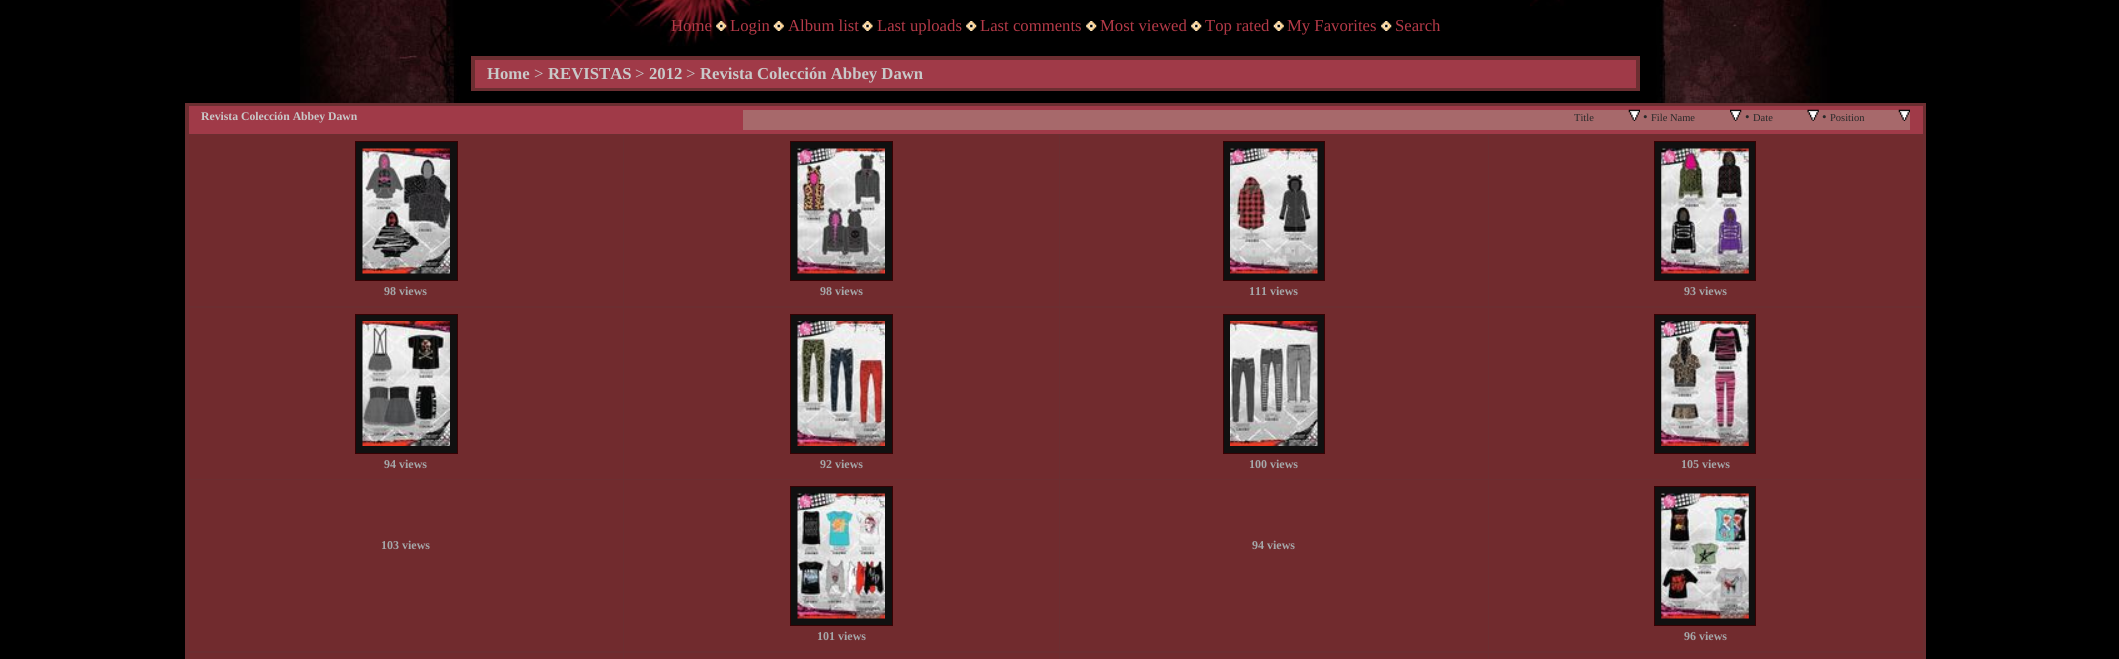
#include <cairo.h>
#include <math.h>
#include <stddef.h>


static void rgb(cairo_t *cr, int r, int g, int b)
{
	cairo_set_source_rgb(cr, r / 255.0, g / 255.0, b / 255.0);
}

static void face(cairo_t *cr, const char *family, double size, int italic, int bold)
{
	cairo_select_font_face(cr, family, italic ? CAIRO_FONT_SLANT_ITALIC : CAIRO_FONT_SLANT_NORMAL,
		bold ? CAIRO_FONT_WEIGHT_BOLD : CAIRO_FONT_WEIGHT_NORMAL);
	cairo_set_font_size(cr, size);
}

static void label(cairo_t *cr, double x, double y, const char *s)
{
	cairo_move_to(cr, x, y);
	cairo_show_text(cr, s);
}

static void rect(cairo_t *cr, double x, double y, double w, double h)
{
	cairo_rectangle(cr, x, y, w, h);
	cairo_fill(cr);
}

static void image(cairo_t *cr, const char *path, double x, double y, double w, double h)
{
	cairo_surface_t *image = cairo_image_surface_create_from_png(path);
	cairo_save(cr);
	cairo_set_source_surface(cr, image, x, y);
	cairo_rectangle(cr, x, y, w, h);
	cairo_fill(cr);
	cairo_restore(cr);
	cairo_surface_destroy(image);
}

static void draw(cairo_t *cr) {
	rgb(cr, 0, 0, 0);
	cairo_paint(cr);
	image(cr, "image0.png", 300, 0, 1530, 103);
	face(cr, "Liberation Serif", 16.7, 0, 0);
	rgb(cr, 181, 58, 72);
	label(cr, 671, 31, "Home");
	image(cr, "image1.png", 716, 21, 11, 10);
	label(cr, 730, 31, "Login");
	image(cr, "image2.png", 773, 21, 11, 10);
	label(cr, 788, 31, "Album list");
	image(cr, "image3.png", 862, 21, 11, 10);
	label(cr, 877, 31, "Last uploads");
	image(cr, "image4.png", 966, 21, 11, 10);
	label(cr, 980, 31, "Last comments");
	image(cr, "image4.png", 1086, 21, 11, 10);
	label(cr, 1100, 31, "Most viewed");
	image(cr, "image4.png", 1191, 21, 11, 10);
	label(cr, 1205, 31, "Top rated");
	image(cr, "image5.png", 1273, 21, 11, 10);
	label(cr, 1287, 31, "My Favorites");
	image(cr, "image4.png", 1381, 21, 11, 10);
	label(cr, 1395, 31, "Search");
	rgb(cr, 108, 46, 49);
	rect(cr, 471, 56, 1169, 35);
	rgb(cr, 160, 58, 72);
	rect(cr, 475, 60, 1161, 28);
	face(cr, "Liberation Serif", 16.7, 0, 1);
	rgb(cr, 201, 201, 201);
	label(cr, 487, 79, "Home");
	face(cr, "Liberation Serif", 16.7, 0, 0);
	label(cr, 534, 79, ">");
	face(cr, "Liberation Serif", 16.7, 0, 1);
	label(cr, 548, 79, "REVISTAS");
	face(cr, "Liberation Serif", 16.7, 0, 0);
	label(cr, 635, 79, ">");
	face(cr, "Liberation Serif", 16.7, 0, 1);
	label(cr, 649, 79, "2012");
	face(cr, "Liberation Serif", 16.7, 0, 0);
	label(cr, 686, 79, ">");
	face(cr, "Liberation Serif", 16.7, 0, 1);
	label(cr, 700, 79, "Revista Colección Abbey Dawn");
	rgb(cr, 108, 46, 49);
	rect(cr, 185, 103, 1741, 556);
	rgb(cr, 160, 58, 72);
	rect(cr, 189, 106, 1734, 28);
	face(cr, "Liberation Serif", 11.7, 0, 1);
	rgb(cr, 201, 201, 201);
	label(cr, 201, 120, "Revista Colección Abbey Dawn");
	rgb(cr, 167, 105, 107);
	rect(cr, 743, 110, 1167, 20);
	face(cr, "Liberation Serif", 10.5, 0, 0);
	rgb(cr, 40, 40, 40);
	label(cr, 1574, 121, "Title");
	image(cr, "image6.png", 1628, 109, 12, 12);
	face(cr, "Liberation Serif", 13, 0, 0);
	label(cr, 1643, 121, "•");
	face(cr, "Liberation Serif", 10.5, 0, 0);
	label(cr, 1651, 121, "File Name");
	image(cr, "image7.png", 1730, 109, 12, 12);
	face(cr, "Liberation Serif", 13, 0, 0);
	label(cr, 1745, 121, "•");
	face(cr, "Liberation Serif", 10.5, 0, 0);
	label(cr, 1753, 121, "Date");
	image(cr, "image8.png", 1807, 109, 12, 12);
	face(cr, "Liberation Serif", 13, 0, 0);
	label(cr, 1822, 121, "•");
	face(cr, "Liberation Serif", 10.5, 0, 0);
	label(cr, 1830, 121, "Position");
	image(cr, "image9.png", 1898, 109, 12, 12);
	rgb(cr, 113, 43, 46);
	rect(cr, 189, 135, 434, 171);
	rgb(cr, 16, 16, 16);
	cairo_rectangle(cr, 355.5, 141.5, 102, 139);
	cairo_fill_preserve(cr);
	rgb(cr, 53, 1, 3);
	cairo_set_line_width(cr, 1);
	cairo_stroke(cr);
	image(cr, "image10.png", 362, 148, 88, 126);
	face(cr, "Liberation Serif", 12, 0, 1);
	rgb(cr, 165, 168, 170);
	label(cr, 384, 295, "98 views");
	rgb(cr, 113, 43, 46);
	rect(cr, 624, 135, 435, 171);
	rgb(cr, 16, 16, 16);
	cairo_rectangle(cr, 790.5, 141.5, 102, 139);
	cairo_fill_preserve(cr);
	rgb(cr, 53, 1, 3);
	cairo_stroke(cr);
	image(cr, "image11.png", 797, 148, 88, 126);
	rgb(cr, 165, 168, 170);
	label(cr, 820, 295, "98 views");
	rgb(cr, 113, 43, 46);
	rect(cr, 1060, 135, 428, 171);
	rgb(cr, 16, 16, 16);
	cairo_rectangle(cr, 1223.5, 141.5, 101, 139);
	cairo_fill_preserve(cr);
	rgb(cr, 53, 1, 3);
	cairo_stroke(cr);
	image(cr, "image12.png", 1230, 148, 88, 126);
	rgb(cr, 165, 168, 170);
	label(cr, 1249, 295, "111 views");
	rgb(cr, 113, 43, 46);
	rect(cr, 1489, 135, 434, 171);
	rgb(cr, 16, 16, 16);
	cairo_rectangle(cr, 1654.5, 141.5, 101, 139);
	cairo_fill_preserve(cr);
	rgb(cr, 53, 1, 3);
	cairo_stroke(cr);
	image(cr, "image13.png", 1661, 148, 88, 126);
	rgb(cr, 165, 168, 170);
	label(cr, 1684, 295, "93 views");
	rgb(cr, 113, 43, 46);
	rect(cr, 189, 308, 434, 171);
	rgb(cr, 16, 16, 16);
	cairo_rectangle(cr, 355.5, 314.5, 102, 139);
	cairo_fill_preserve(cr);
	rgb(cr, 53, 1, 3);
	cairo_stroke(cr);
	image(cr, "image14.png", 362, 321, 88, 125);
	rgb(cr, 165, 168, 170);
	label(cr, 384, 468, "94 views");
	rgb(cr, 113, 43, 46);
	rect(cr, 624, 308, 435, 171);
	rgb(cr, 16, 16, 16);
	cairo_rectangle(cr, 790.5, 314.5, 102, 139);
	cairo_fill_preserve(cr);
	rgb(cr, 53, 1, 3);
	cairo_stroke(cr);
	image(cr, "image15.png", 797, 321, 88, 125);
	rgb(cr, 165, 168, 170);
	label(cr, 820, 468, "92 views");
	rgb(cr, 113, 43, 46);
	rect(cr, 1060, 308, 428, 171);
	rgb(cr, 16, 16, 16);
	cairo_rectangle(cr, 1223.5, 314.5, 101, 139);
	cairo_fill_preserve(cr);
	rgb(cr, 53, 1, 3);
	cairo_stroke(cr);
	image(cr, "image16.png", 1230, 321, 88, 125);
	rgb(cr, 165, 168, 170);
	label(cr, 1249, 468, "100 views");
	rgb(cr, 113, 43, 46);
	rect(cr, 1489, 308, 434, 171);
	rgb(cr, 16, 16, 16);
	cairo_rectangle(cr, 1654.5, 314.5, 101, 139);
	cairo_fill_preserve(cr);
	rgb(cr, 53, 1, 3);
	cairo_stroke(cr);
	image(cr, "image17.png", 1661, 321, 88, 125);
	rgb(cr, 165, 168, 170);
	label(cr, 1681, 468, "105 views");
	rgb(cr, 113, 43, 46);
	rect(cr, 189, 480, 434, 171);
	rgb(cr, 165, 168, 170);
	label(cr, 381, 549, "103 views");
	rgb(cr, 113, 43, 46);
	rect(cr, 1060, 480, 428, 171);
	rgb(cr, 165, 168, 170);
	label(cr, 1252, 549, "94 views");
	rgb(cr, 113, 43, 46);
	rect(cr, 624, 480, 435, 171);
	rgb(cr, 16, 16, 16);
	cairo_rectangle(cr, 790.5, 486.5, 102, 139);
	cairo_fill_preserve(cr);
	rgb(cr, 53, 1, 3);
	cairo_stroke(cr);
	image(cr, "image18.png", 797, 493, 88, 126);
	rgb(cr, 165, 168, 170);
	label(cr, 817, 640, "101 views");
	rgb(cr, 113, 43, 46);
	rect(cr, 1489, 480, 434, 171);
	rgb(cr, 16, 16, 16);
	cairo_rectangle(cr, 1654.5, 486.5, 101, 139);
	cairo_fill_preserve(cr);
	rgb(cr, 53, 1, 3);
	cairo_stroke(cr);
	image(cr, "image19.png", 1661, 493, 88, 126);
	rgb(cr, 165, 168, 170);
	label(cr, 1684, 640, "96 views");
	rgb(cr, 113, 43, 46);
	rect(cr, 189, 653, 434, 6);
	rect(cr, 624, 653, 435, 6);
	rect(cr, 1060, 653, 428, 6);
	rect(cr, 1489, 653, 434, 6);
}

int main(void) {
	cairo_surface_t *surface = cairo_image_surface_create(CAIRO_FORMAT_RGB24, 2119, 659);
	cairo_t *cr = cairo_create(surface);
	cairo_font_options_t *options = cairo_font_options_create();
	cairo_font_options_set_hint_metrics(options, CAIRO_HINT_METRICS_OFF);
	cairo_font_options_set_hint_style(options, CAIRO_HINT_STYLE_NONE);
	cairo_set_font_options(cr, options);
	cairo_set_miter_limit(cr, 4);
	draw(cr);
	cairo_surface_write_to_png(surface, "render.png");
	cairo_font_options_destroy(options);
	cairo_destroy(cr);
	cairo_surface_destroy(surface);
	return 0;
}
